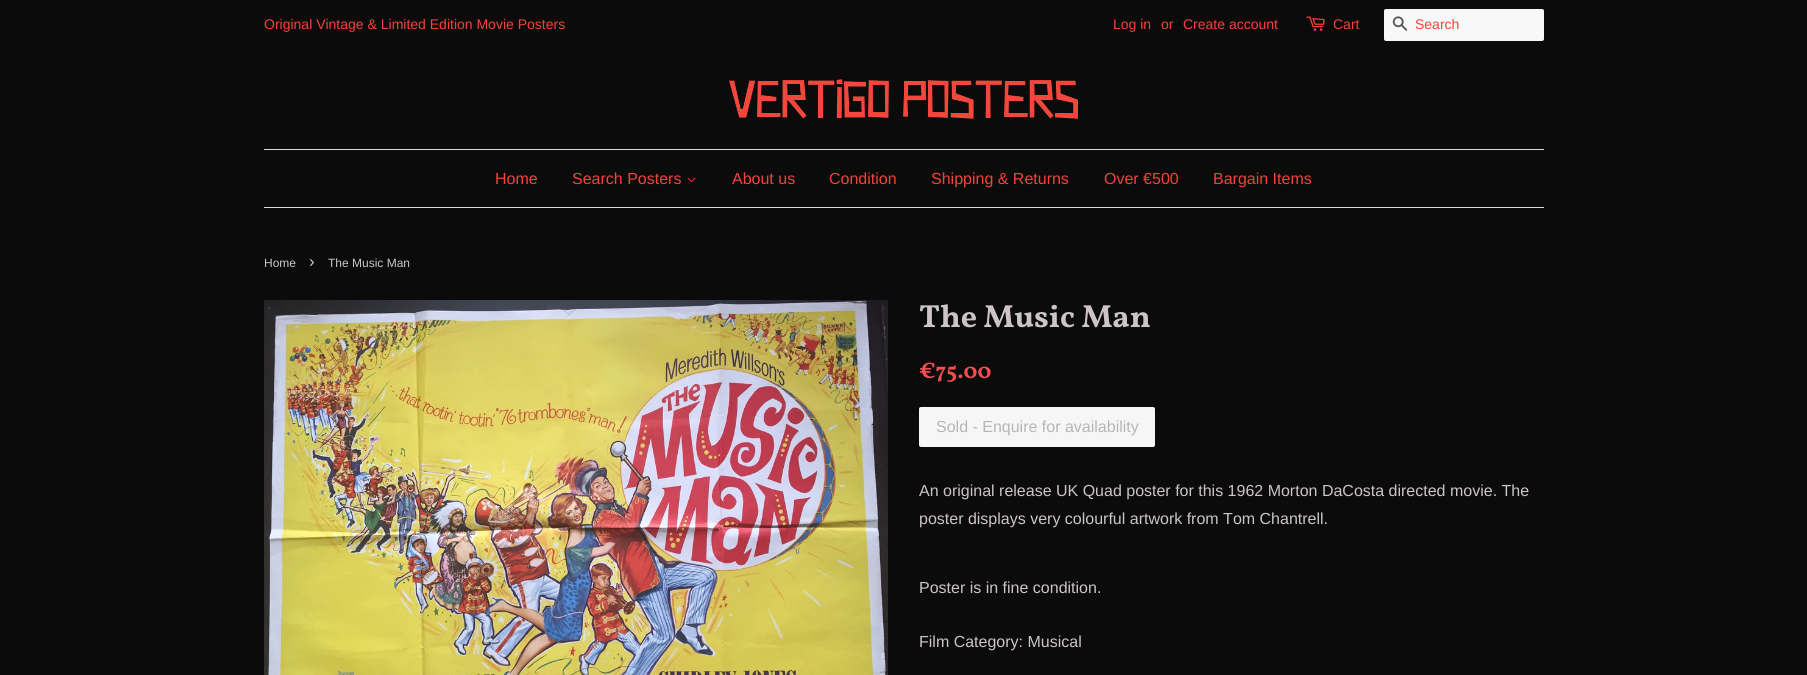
#include <cairo.h>
#include <math.h>
#include <stddef.h>


static void rgb(cairo_t *cr, int r, int g, int b)
{
	cairo_set_source_rgb(cr, r / 255.0, g / 255.0, b / 255.0);
}

static void face(cairo_t *cr, const char *family, double size, int italic, int bold)
{
	cairo_select_font_face(cr, family, italic ? CAIRO_FONT_SLANT_ITALIC : CAIRO_FONT_SLANT_NORMAL,
		bold ? CAIRO_FONT_WEIGHT_BOLD : CAIRO_FONT_WEIGHT_NORMAL);
	cairo_set_font_size(cr, size);
}

static void label(cairo_t *cr, double x, double y, const char *s)
{
	cairo_move_to(cr, x, y);
	cairo_show_text(cr, s);
}

static void rect(cairo_t *cr, double x, double y, double w, double h)
{
	cairo_rectangle(cr, x, y, w, h);
	cairo_fill(cr);
}

static void rrect(cairo_t *cr, double x, double y, double w, double h, double r)
{
	cairo_new_sub_path(cr);
	cairo_arc(cr, x + w - r, y + h - r, r, 0, M_PI / 2);
	cairo_arc(cr, x + r, y + h - r, r, M_PI / 2, M_PI);
	cairo_arc(cr, x + r, y + r, r, M_PI, 1.5 * M_PI);
	cairo_arc(cr, x + w - r, y + r, r, 1.5 * M_PI, 2 * M_PI);
	cairo_close_path(cr);
}

static void image(cairo_t *cr, const char *path, double x, double y, double w, double h)
{
	cairo_surface_t *image = cairo_image_surface_create_from_png(path);
	cairo_save(cr);
	cairo_set_source_surface(cr, image, x, y);
	cairo_rectangle(cr, x, y, w, h);
	cairo_fill(cr);
	cairo_restore(cr);
	cairo_surface_destroy(image);
}

static void draw(cairo_t *cr) {
	rgb(cr, 11, 11, 11);
	cairo_paint(cr);
	face(cr, "Liberation Sans", 14, 0, 0);
	rgb(cr, 247, 65, 58);
	label(cr, 264, 29, "Original Vintage & Limited Edition Movie Posters");
	label(cr, 1113, 29, "Log in");
	label(cr, 1161, 29, "or");
	label(cr, 1183, 29, "Create account");
	image(cr, "image0.png", 1306, 16, 19, 15);
	label(cr, 1333, 29, "Cart");
	rgb(cr, 255, 255, 255);
	rrect(cr, 1384, 9, 160, 32, 2);
	cairo_fill(cr);
	cairo_set_source_rgba(cr, 0, 0, 0, 0.03);
	rect(cr, 1384, 9, 160, 32);
	image(cr, "image1.png", 1392, 16, 16, 15);
	rgb(cr, 247, 65, 58);
	label(cr, 1415, 29, "Search");
	image(cr, "image2.png", 729, 79, 349, 40);
	rgb(cr, 221, 221, 221);
	rect(cr, 264, 149, 1280, 1);
	rect(cr, 264, 207, 1280, 1);
	face(cr, "Liberation Sans", 16, 0, 0);
	rgb(cr, 247, 65, 58);
	label(cr, 495, 184, "Home");
	label(cr, 572, 184, "Search Posters");
	image(cr, "image3.png", 687, 177, 9, 6);
	label(cr, 732, 184, "About us");
	label(cr, 829, 184, "Condition");
	label(cr, 931, 184, "Shipping & Returns");
	label(cr, 1104, 184, "Over €500");
	label(cr, 1213, 184, "Bargain Items");
	face(cr, "Liberation Sans", 12, 0, 0);
	rgb(cr, 205, 197, 197);
	label(cr, 264, 267, "Home");
	face(cr, "Liberation Sans", 17, 0, 0);
	label(cr, 309, 267, "›");
	face(cr, "Liberation Sans", 12, 0, 0);
	label(cr, 328, 267, "The Music Man");
	image(cr, "image4.png", 264, 300, 624, 375);
	face(cr, "Vollkorn", 32, 0, 1);
	label(cr, 919, 327, "The Music Man");
	face(cr, "Vollkorn", 22.5, 0, 1);
	rgb(cr, 242, 80, 80);
	label(cr, 919, 378, "€75.00");
	rgb(cr, 246, 246, 246);
	rrect(cr, 919, 407, 236, 40, 2);
	cairo_fill(cr);
	face(cr, "Liberation Sans", 16, 0, 0);
	rgb(cr, 182, 182, 182);
	label(cr, 936, 432, "Sold - Enquire for availability");
	rgb(cr, 205, 197, 197);
	label(cr, 919, 496, "An original release UK Quad poster for this 1962 Morton DaCosta directed movie. The");
	label(cr, 919, 524, "poster displays very colourful artwork from Tom Chantrell.");
	label(cr, 919, 593, "Poster is in fine condition.");
	label(cr, 919, 647, "Film Category: Musical");
}

int main(void) {
	cairo_surface_t *surface = cairo_image_surface_create(CAIRO_FORMAT_RGB24, 1807, 675);
	cairo_t *cr = cairo_create(surface);
	cairo_font_options_t *options = cairo_font_options_create();
	cairo_font_options_set_hint_metrics(options, CAIRO_HINT_METRICS_OFF);
	cairo_font_options_set_hint_style(options, CAIRO_HINT_STYLE_NONE);
	cairo_set_font_options(cr, options);
	cairo_set_miter_limit(cr, 4);
	draw(cr);
	cairo_surface_write_to_png(surface, "render.png");
	cairo_font_options_destroy(options);
	cairo_destroy(cr);
	cairo_surface_destroy(surface);
	return 0;
}
